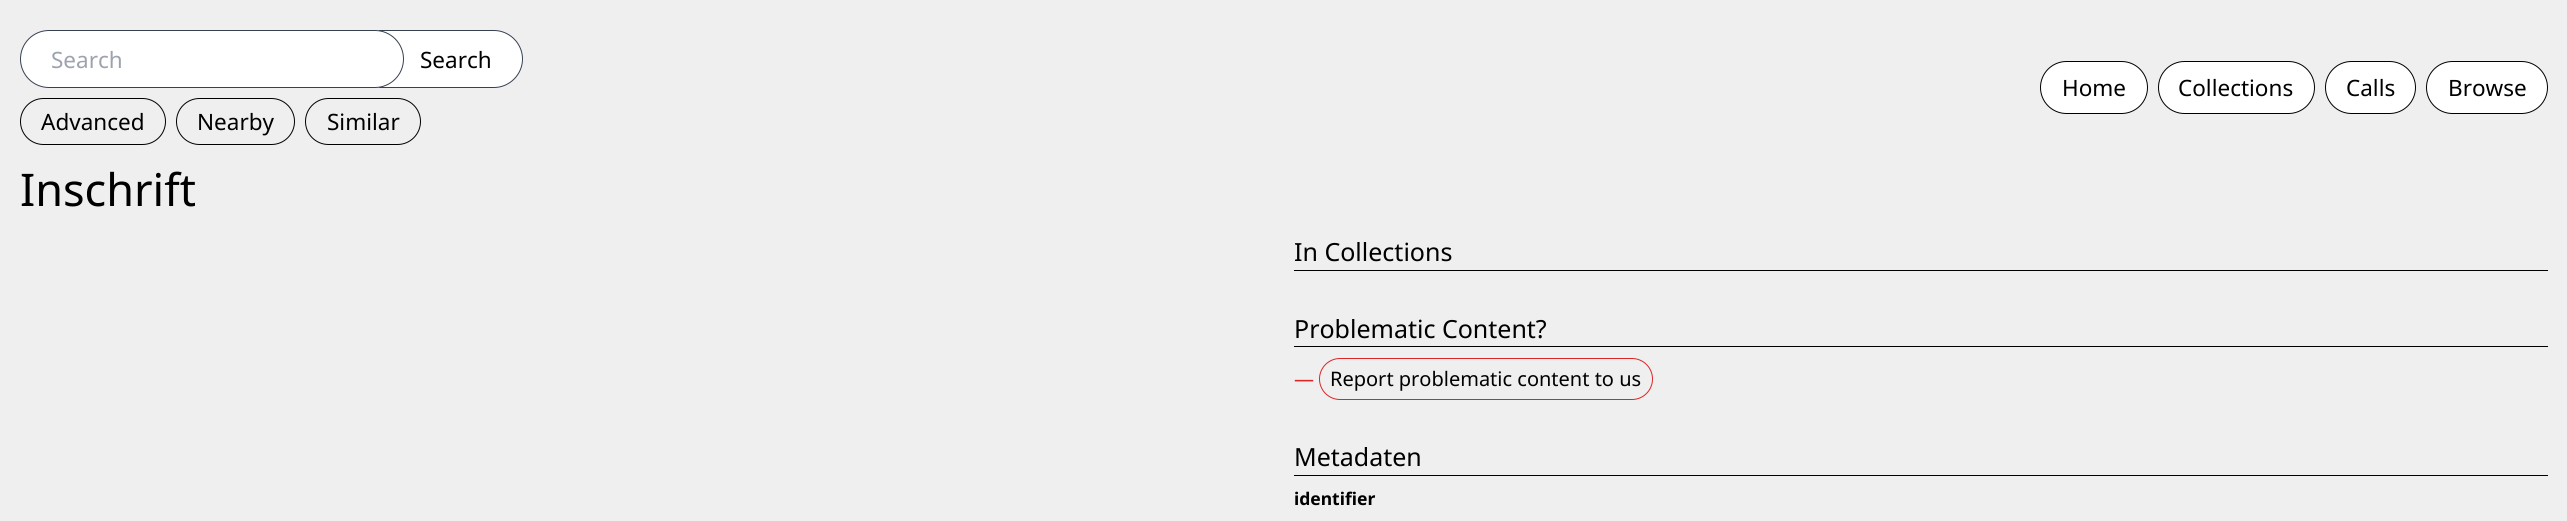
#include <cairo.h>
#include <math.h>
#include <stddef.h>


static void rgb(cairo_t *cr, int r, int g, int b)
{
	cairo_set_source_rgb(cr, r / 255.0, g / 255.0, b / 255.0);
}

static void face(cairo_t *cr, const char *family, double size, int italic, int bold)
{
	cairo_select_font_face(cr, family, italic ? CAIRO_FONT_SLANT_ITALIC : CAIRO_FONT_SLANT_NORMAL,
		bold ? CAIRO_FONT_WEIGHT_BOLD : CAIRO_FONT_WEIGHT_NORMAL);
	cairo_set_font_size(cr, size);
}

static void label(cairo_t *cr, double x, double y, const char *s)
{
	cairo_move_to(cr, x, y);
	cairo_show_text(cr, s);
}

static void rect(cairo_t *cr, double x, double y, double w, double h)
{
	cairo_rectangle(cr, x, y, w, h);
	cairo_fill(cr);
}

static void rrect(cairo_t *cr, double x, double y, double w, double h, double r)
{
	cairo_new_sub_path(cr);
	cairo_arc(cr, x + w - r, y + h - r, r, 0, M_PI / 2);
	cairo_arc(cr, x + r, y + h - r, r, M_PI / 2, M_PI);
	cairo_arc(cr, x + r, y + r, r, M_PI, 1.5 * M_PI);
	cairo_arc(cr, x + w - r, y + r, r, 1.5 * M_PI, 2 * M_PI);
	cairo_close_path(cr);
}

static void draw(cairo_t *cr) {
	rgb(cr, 239, 239, 239);
	cairo_paint(cr);
	rgb(cr, 255, 255, 255);
	cairo_new_path(cr);
	cairo_move_to(cr, 379.5, 30.5);
	cairo_line_to(cr, 494, 30.5);
	cairo_curve_to(cr, 509.5, 30.5, 522.5, 43.5, 522.5, 59);
	cairo_curve_to(cr, 522.5, 74.5, 509.5, 87.5, 494, 87.5);
	cairo_line_to(cr, 379.5, 87.5);
	cairo_close_path(cr);
	cairo_fill_preserve(cr);
	rgb(cr, 55, 65, 81);
	cairo_set_line_width(cr, 1);
	cairo_stroke(cr);
	rgb(cr, 255, 255, 255);
	rrect(cr, 20.5, 30.5, 383, 57, 28.5);
	cairo_fill_preserve(cr);
	rgb(cr, 55, 65, 81);
	cairo_stroke(cr);
	face(cr, "Noto Sans", 22.5, 0, 0);
	rgb(cr, 156, 163, 175);
	label(cr, 51, 68, "Search");
	rgb(cr, 0, 0, 0);
	label(cr, 420, 68, "Search");
	rrect(cr, 20.5, 98.5, 145, 46, 23);
	cairo_stroke(cr);
	label(cr, 41, 130, "Advanced");
	rrect(cr, 176.5, 98.5, 118, 46, 23);
	cairo_stroke(cr);
	label(cr, 197, 130, "Nearby");
	rrect(cr, 305.5, 98.5, 115, 46, 23);
	cairo_stroke(cr);
	label(cr, 327, 130, "Similar");
	rgb(cr, 255, 255, 255);
	rrect(cr, 2040.5, 61.5, 107, 52, 26);
	cairo_fill_preserve(cr);
	rgb(cr, 0, 0, 0);
	cairo_stroke(cr);
	label(cr, 2062, 96, "Home");
	rgb(cr, 255, 255, 255);
	rrect(cr, 2158.5, 61.5, 156, 52, 26);
	cairo_fill_preserve(cr);
	rgb(cr, 0, 0, 0);
	cairo_stroke(cr);
	label(cr, 2178, 96, "Collections");
	rgb(cr, 255, 255, 255);
	rrect(cr, 2325.5, 61.5, 90, 52, 26);
	cairo_fill_preserve(cr);
	rgb(cr, 0, 0, 0);
	cairo_stroke(cr);
	label(cr, 2346, 96, "Calls");
	rgb(cr, 255, 255, 255);
	rrect(cr, 2426.5, 61.5, 121, 52, 26);
	cairo_fill_preserve(cr);
	rgb(cr, 0, 0, 0);
	cairo_stroke(cr);
	label(cr, 2448, 96, "Browse");
	face(cr, "Noto Sans", 45, 0, 0);
	label(cr, 20, 206, "Inschrift");
	rect(cr, 1294, 270, 1254, 1);
	face(cr, "Noto Sans", 25, 0, 0);
	label(cr, 1294, 261, "In Collections");
	rect(cr, 1294, 346, 1254, 1);
	label(cr, 1294, 338, "Problematic Content?");
	face(cr, "Noto Sans", 20, 0, 0);
	rgb(cr, 220, 38, 38);
	label(cr, 1294, 386, "—");
	rrect(cr, 1319.5, 358.5, 333, 41, 20.5);
	cairo_stroke(cr);
	rgb(cr, 0, 0, 0);
	label(cr, 1330, 386, "Report problematic content to us");
	rect(cr, 1294, 475, 1254, 1);
	face(cr, "Noto Sans", 25, 0, 0);
	label(cr, 1294, 466, "Metadaten");
	face(cr, "Noto Sans", 17.5, 0, 1);
	label(cr, 1294, 505, "identifier");
}

int main(void) {
	cairo_surface_t *surface = cairo_image_surface_create(CAIRO_FORMAT_RGB24, 2567, 521);
	cairo_t *cr = cairo_create(surface);
	cairo_font_options_t *options = cairo_font_options_create();
	cairo_font_options_set_hint_metrics(options, CAIRO_HINT_METRICS_OFF);
	cairo_font_options_set_hint_style(options, CAIRO_HINT_STYLE_NONE);
	cairo_set_font_options(cr, options);
	cairo_set_miter_limit(cr, 4);
	draw(cr);
	cairo_surface_write_to_png(surface, "render.png");
	cairo_font_options_destroy(options);
	cairo_destroy(cr);
	cairo_surface_destroy(surface);
	return 0;
}
